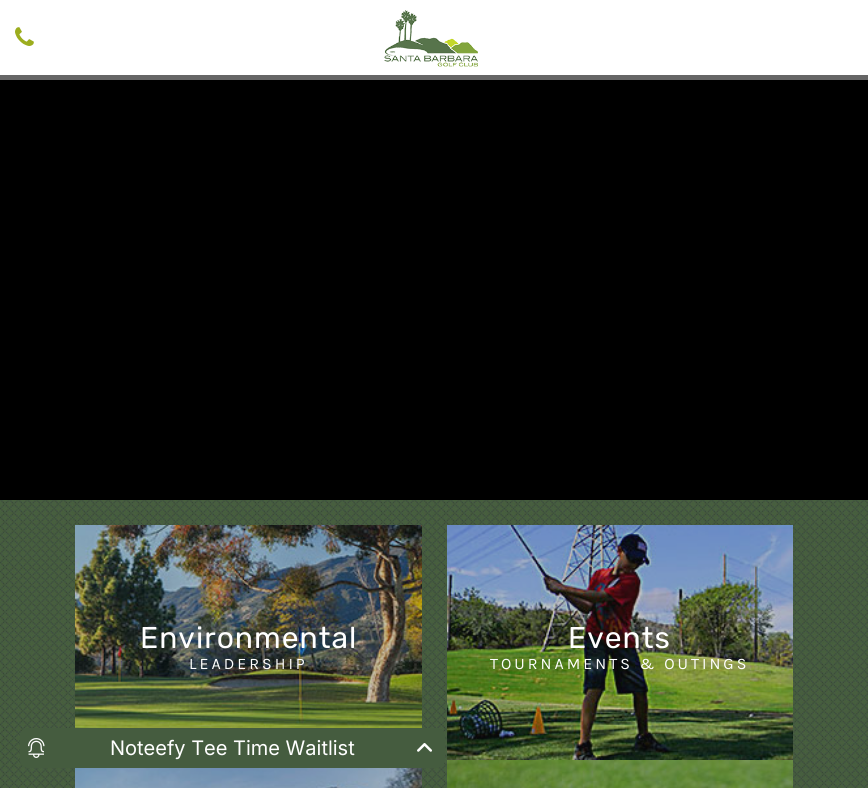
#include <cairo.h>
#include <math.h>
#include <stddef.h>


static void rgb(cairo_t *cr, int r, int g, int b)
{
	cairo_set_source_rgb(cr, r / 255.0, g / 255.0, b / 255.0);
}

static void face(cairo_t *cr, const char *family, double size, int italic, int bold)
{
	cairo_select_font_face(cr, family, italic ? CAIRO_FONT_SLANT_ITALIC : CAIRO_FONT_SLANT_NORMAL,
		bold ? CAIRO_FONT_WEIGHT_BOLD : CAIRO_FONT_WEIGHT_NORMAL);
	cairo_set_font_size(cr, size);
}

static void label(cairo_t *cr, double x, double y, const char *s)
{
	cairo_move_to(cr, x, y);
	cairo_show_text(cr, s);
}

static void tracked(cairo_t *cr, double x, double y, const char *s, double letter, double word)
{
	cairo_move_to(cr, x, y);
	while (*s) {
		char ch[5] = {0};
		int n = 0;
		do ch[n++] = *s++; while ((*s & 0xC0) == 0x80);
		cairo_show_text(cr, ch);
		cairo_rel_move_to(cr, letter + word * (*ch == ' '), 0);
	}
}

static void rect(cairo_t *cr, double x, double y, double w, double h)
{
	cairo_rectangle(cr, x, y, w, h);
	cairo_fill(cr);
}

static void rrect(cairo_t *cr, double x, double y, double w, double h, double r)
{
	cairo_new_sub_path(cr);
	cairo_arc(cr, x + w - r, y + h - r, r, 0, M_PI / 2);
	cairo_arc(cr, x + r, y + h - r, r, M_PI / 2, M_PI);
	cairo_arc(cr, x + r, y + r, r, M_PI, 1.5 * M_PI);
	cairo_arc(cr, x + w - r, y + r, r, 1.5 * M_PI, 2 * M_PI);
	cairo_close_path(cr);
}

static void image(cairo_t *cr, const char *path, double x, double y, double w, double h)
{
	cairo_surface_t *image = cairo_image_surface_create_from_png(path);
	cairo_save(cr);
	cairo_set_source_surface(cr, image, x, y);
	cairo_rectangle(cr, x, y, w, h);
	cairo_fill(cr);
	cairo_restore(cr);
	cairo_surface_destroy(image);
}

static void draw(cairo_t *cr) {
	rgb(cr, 0, 0, 0);
	cairo_paint(cr);
	rgb(cr, 255, 255, 255);
	rect(cr, 0, 0, 868, 75);
	rgb(cr, 102, 102, 102);
	rect(cr, 0, 75, 868, 5);
	image(cr, "image0.png", 15, 27, 19, 19);
	image(cr, "image1.png", 384, 10, 94, 57);
	image(cr, "image2.png", 0, 500, 868, 288);
	image(cr, "image3.png", 75, 525, 347, 203);
	face(cr, "Rubik", 30, 0, 0);
	rgb(cr, 255, 255, 255);
	tracked(cr, 140, 648, "Environmental", 1, 0);
	face(cr, "Karla", 16, 0, 0);
	tracked(cr, 189, 669, "LEADERSHIP", 3, 0);
	image(cr, "image4.png", 447, 525, 346, 235);
	face(cr, "Rubik", 30, 0, 0);
	tracked(cr, 568, 648, "Events", 1, 0);
	face(cr, "Karla", 16, 0, 0);
	tracked(cr, 490, 669, "TOURNAMENTS & OUTINGS", 3, 0);
	image(cr, "image5.png", 75, 768, 347, 20);
	image(cr, "image6.png", 447, 760, 346, 28);
	rgb(cr, 69, 92, 63);
	rrect(cr, 20, 728, 425, 40, 8);
	cairo_fill(cr);
	image(cr, "image7.png", 28, 738, 17, 20);
	face(cr, "Inter", 20, 0, 0);
	rgb(cr, 255, 255, 255);
	label(cr, 110, 755, "Noteefy Tee Time Waitlist");
	image(cr, "image8.png", 417, 743, 15, 9);
}

int main(void) {
	cairo_surface_t *surface = cairo_image_surface_create(CAIRO_FORMAT_RGB24, 868, 788);
	cairo_t *cr = cairo_create(surface);
	cairo_font_options_t *options = cairo_font_options_create();
	cairo_font_options_set_hint_metrics(options, CAIRO_HINT_METRICS_OFF);
	cairo_font_options_set_hint_style(options, CAIRO_HINT_STYLE_NONE);
	cairo_set_font_options(cr, options);
	cairo_set_miter_limit(cr, 4);
	draw(cr);
	cairo_surface_write_to_png(surface, "render.png");
	cairo_font_options_destroy(options);
	cairo_destroy(cr);
	cairo_surface_destroy(surface);
	return 0;
}
